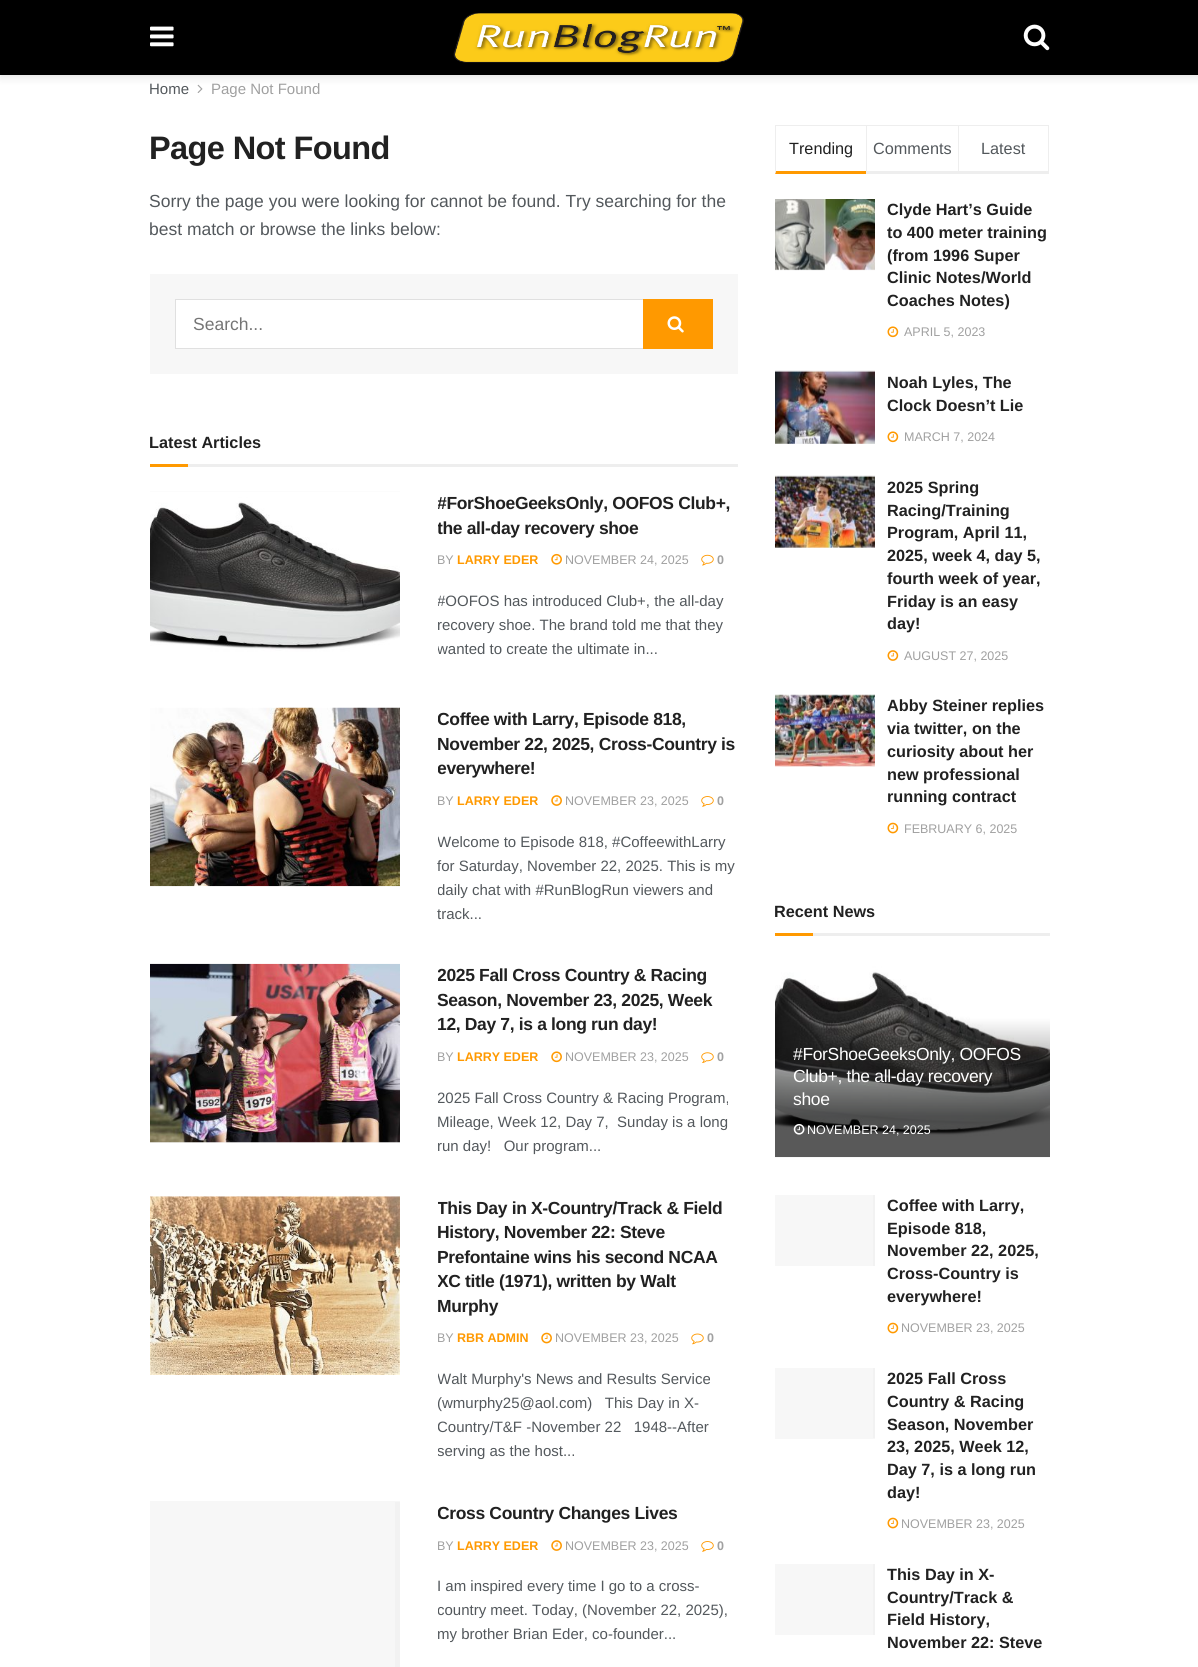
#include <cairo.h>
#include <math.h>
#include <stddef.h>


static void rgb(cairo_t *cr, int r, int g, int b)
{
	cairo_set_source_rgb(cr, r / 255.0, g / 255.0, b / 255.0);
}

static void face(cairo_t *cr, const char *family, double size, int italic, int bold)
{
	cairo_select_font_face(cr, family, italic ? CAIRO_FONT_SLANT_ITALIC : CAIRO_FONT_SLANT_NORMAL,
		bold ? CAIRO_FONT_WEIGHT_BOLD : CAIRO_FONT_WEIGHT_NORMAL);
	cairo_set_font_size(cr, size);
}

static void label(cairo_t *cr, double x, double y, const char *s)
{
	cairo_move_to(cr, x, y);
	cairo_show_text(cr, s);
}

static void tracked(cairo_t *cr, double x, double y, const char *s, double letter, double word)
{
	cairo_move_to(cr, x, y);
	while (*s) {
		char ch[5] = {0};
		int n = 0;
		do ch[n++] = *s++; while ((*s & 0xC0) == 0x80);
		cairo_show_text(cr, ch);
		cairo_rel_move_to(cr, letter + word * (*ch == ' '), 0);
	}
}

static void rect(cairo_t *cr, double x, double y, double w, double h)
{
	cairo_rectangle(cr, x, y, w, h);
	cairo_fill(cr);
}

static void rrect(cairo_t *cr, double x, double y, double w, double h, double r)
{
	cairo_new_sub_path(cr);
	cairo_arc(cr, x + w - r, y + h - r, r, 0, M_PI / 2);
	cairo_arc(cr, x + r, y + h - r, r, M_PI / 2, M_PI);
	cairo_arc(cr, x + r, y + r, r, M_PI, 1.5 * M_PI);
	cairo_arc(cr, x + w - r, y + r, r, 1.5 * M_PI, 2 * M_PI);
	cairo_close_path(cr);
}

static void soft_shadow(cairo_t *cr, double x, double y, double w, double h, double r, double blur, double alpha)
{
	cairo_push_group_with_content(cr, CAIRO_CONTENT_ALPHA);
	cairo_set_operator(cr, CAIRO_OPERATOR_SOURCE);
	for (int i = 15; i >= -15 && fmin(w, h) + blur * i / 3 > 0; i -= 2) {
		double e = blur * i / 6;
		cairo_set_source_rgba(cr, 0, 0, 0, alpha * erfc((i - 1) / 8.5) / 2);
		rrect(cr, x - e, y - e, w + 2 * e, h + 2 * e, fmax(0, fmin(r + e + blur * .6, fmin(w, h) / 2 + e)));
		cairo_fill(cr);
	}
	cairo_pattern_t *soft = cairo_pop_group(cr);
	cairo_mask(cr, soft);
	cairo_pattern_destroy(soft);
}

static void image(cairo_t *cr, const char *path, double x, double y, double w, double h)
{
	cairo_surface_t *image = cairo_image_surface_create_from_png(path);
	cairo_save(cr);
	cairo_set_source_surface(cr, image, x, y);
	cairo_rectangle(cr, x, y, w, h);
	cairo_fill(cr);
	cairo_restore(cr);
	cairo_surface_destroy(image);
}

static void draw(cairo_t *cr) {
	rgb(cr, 255, 255, 255);
	cairo_paint(cr);
	image(cr, "image3.png", 197, 84, 6, 9);
	rgb(cr, 0, 0, 0);
	soft_shadow(cr, 0, 3, 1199, 75, 0, 4, 0.1);
	rgb(cr, 0, 0, 0);
	rect(cr, 0, 0, 1198, 75);
	image(cr, "image0.png", 150, 26, 24, 21);
	image(cr, "image1.png", 453, 13, 291, 50);
	image(cr, "image2.png", 1023, 24, 27, 27);
	face(cr, "Liberation Sans", 15, 0, 0);
	rgb(cr, 83, 88, 92);
	label(cr, 149, 94, "Home");
	rgb(cr, 160, 160, 160);
	label(cr, 211, 94, "Page Not Found");
	face(cr, "Liberation Sans", 32.5, 0, 1);
	rgb(cr, 33, 33, 33);
	tracked(cr, 149, 159, "Page Not Found", -0.6, 0);
	face(cr, "Liberation Sans", 17.5, 0, 0);
	rgb(cr, 83, 88, 92);
	label(cr, 149, 207, "Sorry the page you were looking for cannot be found. Try searching for the");
	label(cr, 149, 235, "best match or browse the links below:");
	rgb(cr, 247, 247, 247);
	rect(cr, 150, 274, 588, 100);
	rgb(cr, 255, 255, 255);
	rect(cr, 176, 300, 467, 48);
	cairo_rectangle(cr, 175.5, 299.5, 537, 49);
	rgb(cr, 224, 224, 224);
	cairo_set_line_width(cr, 1);
	cairo_stroke(cr);
	rgb(cr, 117, 117, 117);
	label(cr, 193, 330, "Search...");
	rgb(cr, 255, 153, 0);
	rect(cr, 643, 299, 70, 50);
	image(cr, "image4.png", 667, 316, 17, 17);
	rgb(cr, 238, 238, 238);
	rect(cr, 188, 464, 550, 3);
	face(cr, "Liberation Sans", 16.25, 0, 1);
	rgb(cr, 33, 33, 33);
	label(cr, 149, 448, "Latest Articles");
	rgb(cr, 255, 153, 0);
	rect(cr, 150, 464, 38, 3);
	rgb(cr, 247, 247, 247);
	rect(cr, 150, 491, 250, 1);
	image(cr, "image5.png", 150, 491, 250, 179);
	cairo_save(cr);
	cairo_rectangle(cr, 438, 491, 300, 170);
	cairo_clip(cr);
	face(cr, "Liberation Sans", 17.5, 0, 1);
	rgb(cr, 33, 33, 33);
	tracked(cr, 437, 509, "#ForShoeGeeksOnly, OOFOS Club+,", -0.35, 0);
	tracked(cr, 437, 534, "the all-day recovery shoe", -0.35, 0);
	face(cr, "Liberation Sans", 12.5, 0, 0);
	rgb(cr, 160, 160, 160);
	label(cr, 437, 564, "BY");
	cairo_restore(cr);
	face(cr, "Liberation Sans", 12.5, 0, 1);
	rgb(cr, 255, 153, 0);
	label(cr, 457, 564, "LARRY EDER");
	image(cr, "image6.png", 551, 553, 11, 12);
	face(cr, "Liberation Sans", 12.5, 0, 0);
	rgb(cr, 160, 160, 160);
	label(cr, 565, 564, "NOVEMBER 24, 2025");
	image(cr, "image7.png", 701, 554, 13, 12);
	face(cr, "Liberation Sans", 12.5, 0, 1);
	label(cr, 717, 564, "0");
	cairo_save(cr);
	cairo_rectangle(cr, 438, 491, 300, 170);
	cairo_clip(cr);
	face(cr, "Liberation Sans", 15, 0, 0);
	rgb(cr, 83, 88, 92);
	label(cr, 437, 606, "#OOFOS has introduced Club+, the all-day");
	label(cr, 437, 630, "recovery shoe. The brand told me that they");
	label(cr, 437, 654, "wanted to create the ultimate in...");
	cairo_restore(cr);
	image(cr, "image8.png", 150, 707, 250, 180);
	cairo_save(cr);
	cairo_rectangle(cr, 438, 708, 300, 218);
	cairo_clip(cr);
	face(cr, "Liberation Sans", 17.5, 0, 1);
	rgb(cr, 33, 33, 33);
	tracked(cr, 437, 725, "Coffee with Larry, Episode 818,", -0.35, 0);
	cairo_restore(cr);
	face(cr, "Liberation Sans", 17.5, 0, 1);
	rgb(cr, 33, 33, 33);
	tracked(cr, 437, 750, "November 22, 2025, Cross-Country is", -0.35, 0);
	cairo_save(cr);
	cairo_rectangle(cr, 438, 708, 300, 218);
	cairo_clip(cr);
	tracked(cr, 437, 774, "everywhere!", -0.35, 0);
	face(cr, "Liberation Sans", 12.5, 0, 0);
	rgb(cr, 160, 160, 160);
	label(cr, 437, 805, "BY");
	cairo_restore(cr);
	face(cr, "Liberation Sans", 12.5, 0, 1);
	rgb(cr, 255, 153, 0);
	label(cr, 457, 805, "LARRY EDER");
	image(cr, "image9.png", 551, 795, 11, 11);
	face(cr, "Liberation Sans", 12.5, 0, 0);
	rgb(cr, 160, 160, 160);
	label(cr, 565, 805, "NOVEMBER 23, 2025");
	image(cr, "image10.png", 701, 796, 13, 11);
	face(cr, "Liberation Sans", 12.5, 0, 1);
	label(cr, 717, 805, "0");
	cairo_save(cr);
	cairo_rectangle(cr, 438, 708, 300, 218);
	cairo_clip(cr);
	face(cr, "Liberation Sans", 15, 0, 0);
	rgb(cr, 83, 88, 92);
	label(cr, 437, 847, "Welcome to Episode 818, #CoffeewithLarry");
	cairo_restore(cr);
	face(cr, "Liberation Sans", 15, 0, 0);
	rgb(cr, 83, 88, 92);
	label(cr, 437, 871, "for Saturday, November 22, 2025. This is my");
	cairo_save(cr);
	cairo_rectangle(cr, 438, 708, 300, 218);
	cairo_clip(cr);
	label(cr, 437, 895, "daily chat with #RunBlogRun viewers and");
	cairo_restore(cr);
	label(cr, 437, 919, "track...");
	rgb(cr, 247, 247, 247);
	rect(cr, 150, 1142, 250, 1);
	image(cr, "image11.png", 150, 963, 250, 180);
	cairo_save(cr);
	cairo_rectangle(cr, 438, 964, 300, 195);
	cairo_clip(cr);
	face(cr, "Liberation Sans", 17.5, 0, 1);
	rgb(cr, 33, 33, 33);
	tracked(cr, 437, 981, "2025 Fall Cross Country & Racing", -0.35, 0);
	cairo_restore(cr);
	face(cr, "Liberation Sans", 17.5, 0, 1);
	rgb(cr, 33, 33, 33);
	tracked(cr, 437, 1006, "Season, November 23, 2025, Week", -0.35, 0);
	tracked(cr, 437, 1030, "12, Day 7, is a long run day!", -0.35, 0);
	cairo_save(cr);
	cairo_rectangle(cr, 438, 964, 300, 195);
	cairo_clip(cr);
	face(cr, "Liberation Sans", 12.5, 0, 0);
	rgb(cr, 160, 160, 160);
	label(cr, 437, 1061, "BY");
	cairo_restore(cr);
	face(cr, "Liberation Sans", 12.5, 0, 1);
	rgb(cr, 255, 153, 0);
	label(cr, 457, 1061, "LARRY EDER");
	image(cr, "image12.png", 551, 1051, 11, 12);
	face(cr, "Liberation Sans", 12.5, 0, 0);
	rgb(cr, 160, 160, 160);
	label(cr, 565, 1061, "NOVEMBER 23, 2025");
	image(cr, "image13.png", 701, 1052, 13, 11);
	face(cr, "Liberation Sans", 12.5, 0, 1);
	label(cr, 717, 1061, "0");
	cairo_save(cr);
	cairo_rectangle(cr, 438, 964, 300, 195);
	cairo_clip(cr);
	face(cr, "Liberation Sans", 15, 0, 0);
	rgb(cr, 83, 88, 92);
	label(cr, 437, 1103, "2025 Fall Cross Country & Racing Program,");
	cairo_restore(cr);
	face(cr, "Liberation Sans", 15, 0, 0);
	rgb(cr, 83, 88, 92);
	label(cr, 437, 1127, "Mileage, Week 12, Day 7,  Sunday is a long");
	cairo_save(cr);
	cairo_rectangle(cr, 438, 964, 300, 195);
	cairo_clip(cr);
	label(cr, 437, 1151, "run day!   Our program...");
	cairo_restore(cr);
	rgb(cr, 247, 247, 247);
	rect(cr, 150, 1196, 250, 1);
	image(cr, "image14.png", 150, 1196, 250, 179);
	cairo_save(cr);
	cairo_rectangle(cr, 438, 1196, 300, 268);
	cairo_clip(cr);
	face(cr, "Liberation Sans", 17.5, 0, 1);
	rgb(cr, 33, 33, 33);
	tracked(cr, 437, 1214, "This Day in X-Country/Track & Field", -0.35, 0);
	cairo_restore(cr);
	face(cr, "Liberation Sans", 17.5, 0, 1);
	rgb(cr, 33, 33, 33);
	tracked(cr, 437, 1238, "History, November 22: Steve", -0.35, 0);
	tracked(cr, 437, 1263, "Prefontaine wins his second NCAA", -0.35, 0);
	cairo_save(cr);
	cairo_rectangle(cr, 438, 1196, 300, 268);
	cairo_clip(cr);
	tracked(cr, 437, 1287, "XC title (1971), written by Walt", -0.35, 0);
	cairo_restore(cr);
	tracked(cr, 437, 1312, "Murphy", -0.35, 0);
	cairo_save(cr);
	cairo_rectangle(cr, 438, 1196, 300, 268);
	cairo_clip(cr);
	face(cr, "Liberation Sans", 12.5, 0, 0);
	rgb(cr, 160, 160, 160);
	label(cr, 437, 1342, "BY");
	cairo_restore(cr);
	face(cr, "Liberation Sans", 12.5, 0, 1);
	rgb(cr, 255, 153, 0);
	label(cr, 457, 1342, "RBR ADMIN");
	image(cr, "image15.png", 541, 1332, 11, 12);
	face(cr, "Liberation Sans", 12.5, 0, 0);
	rgb(cr, 160, 160, 160);
	label(cr, 555, 1342, "NOVEMBER 23, 2025");
	image(cr, "image16.png", 691, 1333, 13, 12);
	face(cr, "Liberation Sans", 12.5, 0, 1);
	label(cr, 707, 1342, "0");
	cairo_save(cr);
	cairo_rectangle(cr, 438, 1196, 300, 268);
	cairo_clip(cr);
	face(cr, "Liberation Sans", 15, 0, 0);
	rgb(cr, 83, 88, 92);
	label(cr, 437, 1384, "Walt Murphy's News and Results Service");
	label(cr, 437, 1408, "(");
	cairo_restore(cr);
	face(cr, "Liberation Sans", 15, 0, 0);
	rgb(cr, 83, 88, 92);
	label(cr, 442, 1408, "wmurphy25@aol.com)   This Day in X-");
	cairo_save(cr);
	cairo_rectangle(cr, 438, 1196, 300, 268);
	cairo_clip(cr);
	label(cr, 437, 1432, "Country/T&F -November 22   1948--After");
	label(cr, 437, 1456, "serving as the host...");
	cairo_restore(cr);
	rgb(cr, 247, 247, 247);
	rect(cr, 150, 1501, 250, 166);
	rgb(cr, 242, 242, 242);
	rect(cr, 395, 1502, 5, 165);
	cairo_save(cr);
	cairo_rectangle(cr, 438, 1501, 300, 147);
	cairo_clip(cr);
	face(cr, "Liberation Sans", 17.5, 0, 1);
	rgb(cr, 33, 33, 33);
	tracked(cr, 437, 1519, "Cross Country Changes Lives", -0.35, 0);
	face(cr, "Liberation Sans", 12.5, 0, 0);
	rgb(cr, 160, 160, 160);
	label(cr, 437, 1550, "BY");
	cairo_restore(cr);
	face(cr, "Liberation Sans", 12.5, 0, 1);
	rgb(cr, 255, 153, 0);
	label(cr, 457, 1550, "LARRY EDER");
	image(cr, "image9.png", 551, 1540, 11, 11);
	face(cr, "Liberation Sans", 12.5, 0, 0);
	rgb(cr, 160, 160, 160);
	label(cr, 565, 1550, "NOVEMBER 23, 2025");
	image(cr, "image10.png", 701, 1541, 13, 11);
	face(cr, "Liberation Sans", 12.5, 0, 1);
	label(cr, 717, 1550, "0");
	face(cr, "Liberation Sans", 15, 0, 0);
	rgb(cr, 83, 88, 92);
	label(cr, 437, 1591, "I am inspired every time I go to a cross-");
	cairo_save(cr);
	cairo_rectangle(cr, 438, 1501, 300, 147);
	cairo_clip(cr);
	label(cr, 437, 1615, "country meet. Today, (November 22, 2025),");
	label(cr, 437, 1639, "my brother Brian Eder, co-founder...");
	cairo_restore(cr);
	rgb(cr, 238, 238, 238);
	rect(cr, 775, 125, 274, 1);
	rgb(cr, 255, 153, 0);
	cairo_new_path(cr);
	cairo_move_to(cr, 866, 174);
	cairo_line_to(cr, 775, 174);
	cairo_line_to(cr, 776, 171);
	cairo_line_to(cr, 866, 171);
	cairo_close_path(cr);
	cairo_fill(cr);
	rgb(cr, 238, 238, 238);
	cairo_new_path(cr);
	cairo_move_to(cr, 775, 174);
	cairo_line_to(cr, 775, 125);
	cairo_line_to(cr, 776, 126);
	cairo_line_to(cr, 776, 171);
	cairo_close_path(cr);
	cairo_fill(cr);
	face(cr, "Liberation Sans", 16.25, 0, 0);
	rgb(cr, 33, 33, 33);
	label(cr, 789, 154, "Trending");
	rgb(cr, 238, 238, 238);
	rect(cr, 866, 171, 92, 3);
	rect(cr, 866, 125, 1, 49);
	rgb(cr, 83, 88, 92);
	label(cr, 873, 154, "Comments");
	rgb(cr, 238, 238, 238);
	rect(cr, 1048, 125, 1, 49);
	rect(cr, 958, 171, 91, 3);
	rect(cr, 958, 125, 1, 49);
	rgb(cr, 83, 88, 92);
	label(cr, 981, 154, "Latest");
	image(cr, "image17.png", 775, 199, 100, 72);
	face(cr, "Liberation Sans", 16.25, 0, 1);
	rgb(cr, 33, 33, 33);
	label(cr, 887, 215, "Clyde Hart’s Guide");
	label(cr, 887, 238, "to 400 meter training");
	label(cr, 887, 261, "(from 1996 Super");
	label(cr, 887, 283, "Clinic Notes/World");
	label(cr, 887, 306, "Coaches Notes)");
	image(cr, "image18.png", 887, 326, 12, 12);
	face(cr, "Liberation Sans", 12.5, 0, 0);
	rgb(cr, 160, 160, 160);
	label(cr, 904, 336, "APRIL 5, 2023");
	rgb(cr, 247, 247, 247);
	rect(cr, 775, 371, 100, 73);
	image(cr, "image19.png", 775, 370, 100, 74);
	face(cr, "Liberation Sans", 16.25, 0, 1);
	rgb(cr, 33, 33, 33);
	label(cr, 887, 388, "Noah Lyles, The");
	label(cr, 887, 411, "Clock Doesn’t Lie");
	image(cr, "image18.png", 887, 431, 12, 12);
	face(cr, "Liberation Sans", 12.5, 0, 0);
	rgb(cr, 160, 160, 160);
	label(cr, 904, 441, "MARCH 7, 2024");
	rgb(cr, 247, 247, 247);
	rect(cr, 775, 476, 100, 72);
	image(cr, "image20.png", 775, 475, 100, 73);
	face(cr, "Liberation Sans", 16.25, 0, 1);
	rgb(cr, 33, 33, 33);
	label(cr, 887, 493, "2025 Spring");
	label(cr, 887, 516, "Racing/Training");
	label(cr, 887, 538, "Program, April 11,");
	label(cr, 887, 561, "2025, week 4, day 5,");
	label(cr, 887, 584, "fourth week of year,");
	label(cr, 887, 607, "Friday is an easy");
	label(cr, 887, 629, "day!");
	image(cr, "image21.png", 887, 650, 12, 11);
	face(cr, "Liberation Sans", 12.5, 0, 0);
	rgb(cr, 160, 160, 160);
	label(cr, 904, 660, "AUGUST 27, 2025");
	rgb(cr, 247, 247, 247);
	rect(cr, 775, 695, 100, 71);
	image(cr, "image22.png", 775, 694, 100, 73);
	face(cr, "Liberation Sans", 16.25, 0, 1);
	rgb(cr, 33, 33, 33);
	label(cr, 887, 711, "Abby Steiner replies");
	label(cr, 887, 734, "via twitter, on the");
	label(cr, 887, 757, "curiosity about her");
	label(cr, 887, 780, "new professional");
	label(cr, 887, 802, "running contract");
	image(cr, "image23.png", 887, 822, 12, 12);
	face(cr, "Liberation Sans", 12.5, 0, 0);
	rgb(cr, 160, 160, 160);
	label(cr, 904, 833, "FEBRUARY 6, 2025");
	rgb(cr, 238, 238, 238);
	rect(cr, 813, 933, 237, 3);
	face(cr, "Liberation Sans", 16.25, 0, 1);
	rgb(cr, 33, 33, 33);
	label(cr, 774, 917, "Recent News");
	rgb(cr, 255, 153, 0);
	rect(cr, 775, 933, 38, 3);
	rgb(cr, 247, 247, 247);
	rect(cr, 775, 1157, 275, 1);
	image(cr, "image24.png", 775, 960, 275, 197);
	face(cr, "Liberation Sans", 17.5, 0, 0);
	rgb(cr, 255, 255, 255);
	tracked(cr, 793, 1060, "#ForShoeGeeksOnly, OOFOS", -0.35, 0);
	tracked(cr, 793, 1082, "Club+, the all-day recovery", -0.35, 0);
	tracked(cr, 793, 1105, "shoe", -0.35, 0);
	image(cr, "image25.png", 793, 1123, 12, 12);
	face(cr, "Liberation Sans", 12.5, 0, 0);
	label(cr, 807, 1134, "NOVEMBER 24, 2025");
	rgb(cr, 247, 247, 247);
	rect(cr, 775, 1195, 98, 71);
	rgb(cr, 242, 242, 242);
	rect(cr, 873, 1195, 2, 71);
	face(cr, "Liberation Sans", 16.25, 0, 1);
	rgb(cr, 33, 33, 33);
	label(cr, 887, 1211, "Coffee with Larry,");
	label(cr, 887, 1234, "Episode 818,");
	label(cr, 887, 1256, "November 22, 2025,");
	label(cr, 887, 1279, "Cross-Country is");
	label(cr, 887, 1302, "everywhere!");
	image(cr, "image23.png", 887, 1322, 12, 12);
	face(cr, "Liberation Sans", 12.5, 0, 0);
	rgb(cr, 160, 160, 160);
	label(cr, 901, 1332, "NOVEMBER 23, 2025");
	rgb(cr, 247, 247, 247);
	rect(cr, 775, 1368, 100, 71);
	rgb(cr, 242, 242, 242);
	rect(cr, 873, 1368, 2, 70);
	face(cr, "Liberation Sans", 16.25, 0, 1);
	rgb(cr, 33, 33, 33);
	label(cr, 887, 1384, "2025 Fall Cross");
	label(cr, 887, 1407, "Country & Racing");
	label(cr, 887, 1430, "Season, November");
	label(cr, 887, 1452, "23, 2025, Week 12,");
	label(cr, 887, 1475, "Day 7, is a long run");
	label(cr, 887, 1498, "day!");
	image(cr, "image23.png", 887, 1517, 12, 12);
	face(cr, "Liberation Sans", 12.5, 0, 0);
	rgb(cr, 160, 160, 160);
	label(cr, 901, 1528, "NOVEMBER 23, 2025");
	rgb(cr, 247, 247, 247);
	rect(cr, 775, 1564, 98, 71);
	rgb(cr, 242, 242, 242);
	rect(cr, 873, 1564, 2, 71);
	face(cr, "Liberation Sans", 16.25, 0, 1);
	rgb(cr, 33, 33, 33);
	label(cr, 887, 1580, "This Day in X-");
	label(cr, 887, 1603, "Country/Track &");
	label(cr, 887, 1625, "Field History,");
	label(cr, 887, 1648, "November 22: Steve");
}

int main(void) {
	cairo_surface_t *surface = cairo_image_surface_create(CAIRO_FORMAT_RGB24, 1198, 1667);
	cairo_t *cr = cairo_create(surface);
	cairo_font_options_t *options = cairo_font_options_create();
	cairo_font_options_set_hint_metrics(options, CAIRO_HINT_METRICS_OFF);
	cairo_font_options_set_hint_style(options, CAIRO_HINT_STYLE_NONE);
	cairo_set_font_options(cr, options);
	cairo_set_miter_limit(cr, 4);
	draw(cr);
	cairo_surface_write_to_png(surface, "render.png");
	cairo_font_options_destroy(options);
	cairo_destroy(cr);
	cairo_surface_destroy(surface);
	return 0;
}
